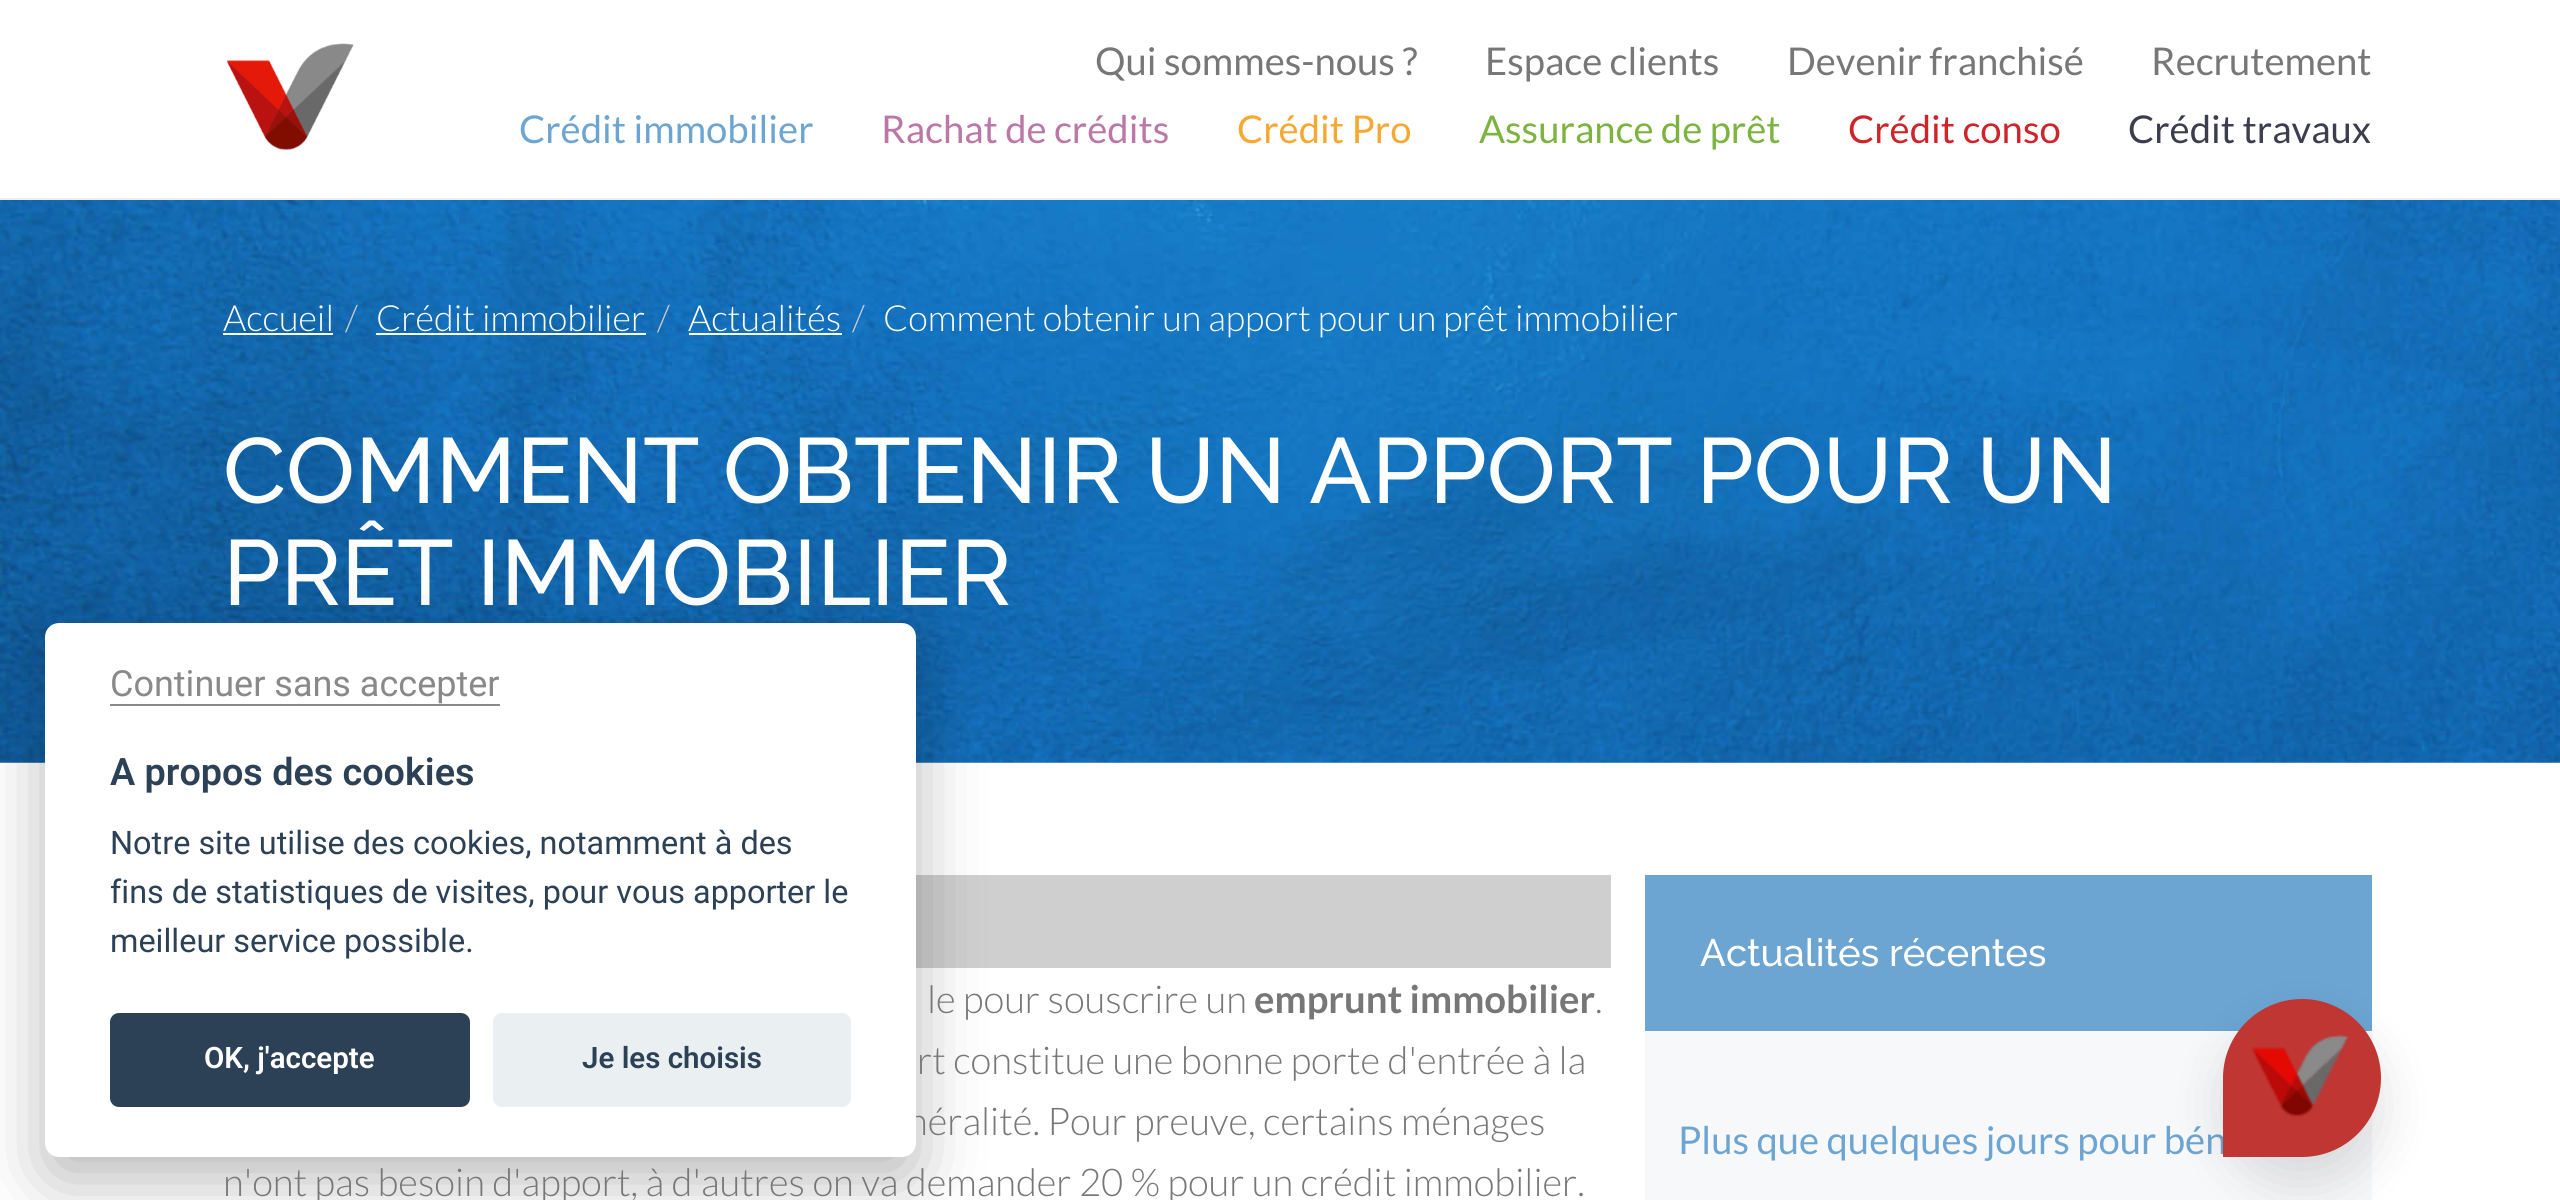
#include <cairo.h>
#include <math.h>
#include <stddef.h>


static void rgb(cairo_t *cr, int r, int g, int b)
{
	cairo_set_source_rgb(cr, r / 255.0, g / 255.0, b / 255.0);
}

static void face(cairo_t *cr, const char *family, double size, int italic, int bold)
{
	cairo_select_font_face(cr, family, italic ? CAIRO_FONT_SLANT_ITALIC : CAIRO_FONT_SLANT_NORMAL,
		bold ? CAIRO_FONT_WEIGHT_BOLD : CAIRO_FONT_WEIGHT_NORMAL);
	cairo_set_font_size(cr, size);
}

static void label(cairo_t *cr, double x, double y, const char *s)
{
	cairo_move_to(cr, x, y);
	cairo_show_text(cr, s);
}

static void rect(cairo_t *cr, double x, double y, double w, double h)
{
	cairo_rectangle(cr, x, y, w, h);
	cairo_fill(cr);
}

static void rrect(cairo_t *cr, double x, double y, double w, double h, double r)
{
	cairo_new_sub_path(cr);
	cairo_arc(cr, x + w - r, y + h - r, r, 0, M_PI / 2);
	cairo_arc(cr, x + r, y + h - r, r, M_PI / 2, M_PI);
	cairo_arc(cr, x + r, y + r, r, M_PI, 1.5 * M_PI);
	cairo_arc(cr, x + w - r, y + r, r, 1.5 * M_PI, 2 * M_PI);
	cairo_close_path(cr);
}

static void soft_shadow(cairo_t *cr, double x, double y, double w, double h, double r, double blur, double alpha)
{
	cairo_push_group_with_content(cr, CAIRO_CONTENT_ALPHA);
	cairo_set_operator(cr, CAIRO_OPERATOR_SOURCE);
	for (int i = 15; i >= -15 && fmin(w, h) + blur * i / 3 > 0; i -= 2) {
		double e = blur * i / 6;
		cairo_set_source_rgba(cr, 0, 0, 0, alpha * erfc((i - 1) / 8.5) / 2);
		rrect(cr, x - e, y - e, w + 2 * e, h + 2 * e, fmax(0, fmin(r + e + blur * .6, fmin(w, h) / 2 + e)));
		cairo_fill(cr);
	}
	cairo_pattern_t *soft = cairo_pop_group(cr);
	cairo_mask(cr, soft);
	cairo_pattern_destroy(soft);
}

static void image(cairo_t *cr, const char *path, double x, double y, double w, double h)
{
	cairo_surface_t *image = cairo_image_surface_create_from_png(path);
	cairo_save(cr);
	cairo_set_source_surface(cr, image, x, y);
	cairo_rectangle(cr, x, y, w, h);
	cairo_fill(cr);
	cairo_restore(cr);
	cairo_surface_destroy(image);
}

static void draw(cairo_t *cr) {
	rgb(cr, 255, 255, 255);
	cairo_paint(cr);
	rgb(cr, 238, 238, 238);
	rect(cr, 0, 198, 2560, 2);
	image(cr, "image0.png", 227, 43, 127, 107);
	face(cr, "Lato", 38.25, 0, 0);
	rgb(cr, 119, 119, 119);
	label(cr, 1095, 75, "Qui sommes-nous ?");
	label(cr, 1485, 75, "Espace clients");
	label(cr, 1787, 75, "Devenir franchisé");
	label(cr, 2151, 75, "Recrutement");
	rgb(cr, 108, 165, 210);
	label(cr, 519, 143, "Crédit immobilier");
	rgb(cr, 187, 119, 166);
	label(cr, 881, 143, "Rachat de crédits");
	rgb(cr, 247, 168, 49);
	label(cr, 1237, 143, "Crédit Pro");
	rgb(cr, 125, 180, 63);
	label(cr, 1479, 143, "Assurance de prêt");
	rgb(cr, 207, 36, 42);
	label(cr, 1848, 143, "Crédit conso");
	rgb(cr, 60, 61, 79);
	label(cr, 2128, 143, "Crédit travaux");
	image(cr, "image1.png", 0, 200, 2560, 563);
	face(cr, "Lato Light", 36, 0, 0);
	rgb(cr, 255, 255, 255);
	label(cr, 223, 331, "Accueil");
	rect(cr, 223, 333, 110, 2);
	rgb(cr, 204, 204, 204);
	label(cr, 345, 331, "/");
	rgb(cr, 255, 255, 255);
	label(cr, 376, 331, "Crédit immobilier");
	rect(cr, 376, 333, 270, 2);
	rgb(cr, 204, 204, 204);
	label(cr, 657, 331, "/");
	rgb(cr, 255, 255, 255);
	label(cr, 688, 331, "Actualités");
	rect(cr, 689, 333, 153, 2);
	rgb(cr, 204, 204, 204);
	label(cr, 852, 331, "/");
	rgb(cr, 255, 255, 255);
	label(cr, 883, 331, "Comment obtenir un apport pour un prêt immobilier");
	face(cr, "Raleway Medium", 92.25, 0, 0);
	label(cr, 223, 503, "COMMENT OBTENIR UN APPORT POUR UN");
	label(cr, 223, 605, "PRÊT IMMOBILIER");
	rgb(cr, 207, 207, 208);
	rect(cr, 916, 875, 695, 93);
	rgb(cr, 2, 2, 3);
	soft_shadow(cr, 45, 646, 871, 533, 14, 34, 0.28);
	face(cr, "Lato Light", 38.25, 0, 0);
	rgb(cr, 119, 119, 119);
	label(cr, 907, 1135, "néralité. Pour preuve, certains ménages");
	rgb(cr, 255, 255, 255);
	rrect(cr, 45, 623, 871, 534, 14);
	cairo_fill(cr);
	face(cr, "Roboto", 36, 0, 0);
	rgb(cr, 138, 136, 136);
	label(cr, 110, 696, "Continuer sans accepter");
	rect(cr, 110, 704, 390, 2);
	face(cr, "Roboto SemiBold", 37.75, 0, 0);
	rgb(cr, 45, 65, 86);
	label(cr, 110, 785, "A propos des cookies");
	face(cr, "Roboto", 32.4, 0, 0);
	label(cr, 110, 854, "Notre site utilise des cookies, notamment à des");
	label(cr, 110, 903, "fins de statistiques de visites, pour vous apporter le");
	label(cr, 110, 952, "meilleur service possible.");
	rrect(cr, 110, 1013, 360, 94, 9);
	cairo_fill(cr);
	face(cr, "Roboto SemiBold", 29.5, 0, 0);
	rgb(cr, 255, 255, 255);
	label(cr, 204, 1068, "OK, j'accepte");
	rgb(cr, 234, 239, 242);
	rrect(cr, 493, 1013, 358, 94, 9);
	cairo_fill(cr);
	rgb(cr, 45, 65, 86);
	label(cr, 582, 1068, "Je les choisis");
	face(cr, "Lato Light", 38.25, 0, 0);
	rgb(cr, 119, 119, 119);
	label(cr, 927, 1013, "le pour souscrire un");
	face(cr, "Lato", 38.25, 0, 1);
	label(cr, 1254, 1013, "emprunt immobilier");
	face(cr, "Lato Light", 38.25, 0, 0);
	label(cr, 1595, 1013, ".");
	label(cr, 917, 1074, "rt constitue une bonne porte d'entrée à la");
	label(cr, 223, 1196, "n'ont pas besoin d'apport, à d'autres on va demander 20 % pour un crédit immobilier.");
	rgb(cr, 247, 248, 250);
	rect(cr, 1645, 1031, 727, 169);
	rgb(cr, 108, 165, 210);
	rect(cr, 1645, 875, 727, 156);
	face(cr, "Raleway Medium", 38.25, 0, 0);
	rgb(cr, 255, 255, 255);
	label(cr, 1700, 966, "Actualités récentes");
	face(cr, "Lato", 38.25, 0, 0);
	rgb(cr, 108, 165, 210);
	label(cr, 1678, 1154, "Plus que quelques jours pour bén");
	rgb(cr, 0, 0, 0);
	soft_shadow(cr, 2223, 1026, 158, 158, 79, 25, 0.13);
	rgb(cr, 191, 54, 51);
	cairo_new_path(cr);
	cairo_move_to(cr, 2302, 999);
	cairo_curve_to(cr, 2345.5, 999, 2381, 1034.5, 2381, 1078);
	cairo_curve_to(cr, 2381, 1121.5, 2345.5, 1157, 2302, 1157);
	cairo_line_to(cr, 2223, 1157);
	cairo_line_to(cr, 2223, 1078);
	cairo_curve_to(cr, 2223, 1034.5, 2258.5, 999, 2302, 999);
	cairo_close_path(cr);
	cairo_fill(cr);
	image(cr, "image2.png", 2251, 1034, 98, 83);
}

int main(void) {
	cairo_surface_t *surface = cairo_image_surface_create(CAIRO_FORMAT_RGB24, 2560, 1200);
	cairo_t *cr = cairo_create(surface);
	cairo_font_options_t *options = cairo_font_options_create();
	cairo_font_options_set_hint_metrics(options, CAIRO_HINT_METRICS_OFF);
	cairo_font_options_set_hint_style(options, CAIRO_HINT_STYLE_NONE);
	cairo_set_font_options(cr, options);
	cairo_set_miter_limit(cr, 4);
	draw(cr);
	cairo_surface_write_to_png(surface, "render.png");
	cairo_font_options_destroy(options);
	cairo_destroy(cr);
	cairo_surface_destroy(surface);
	return 0;
}
